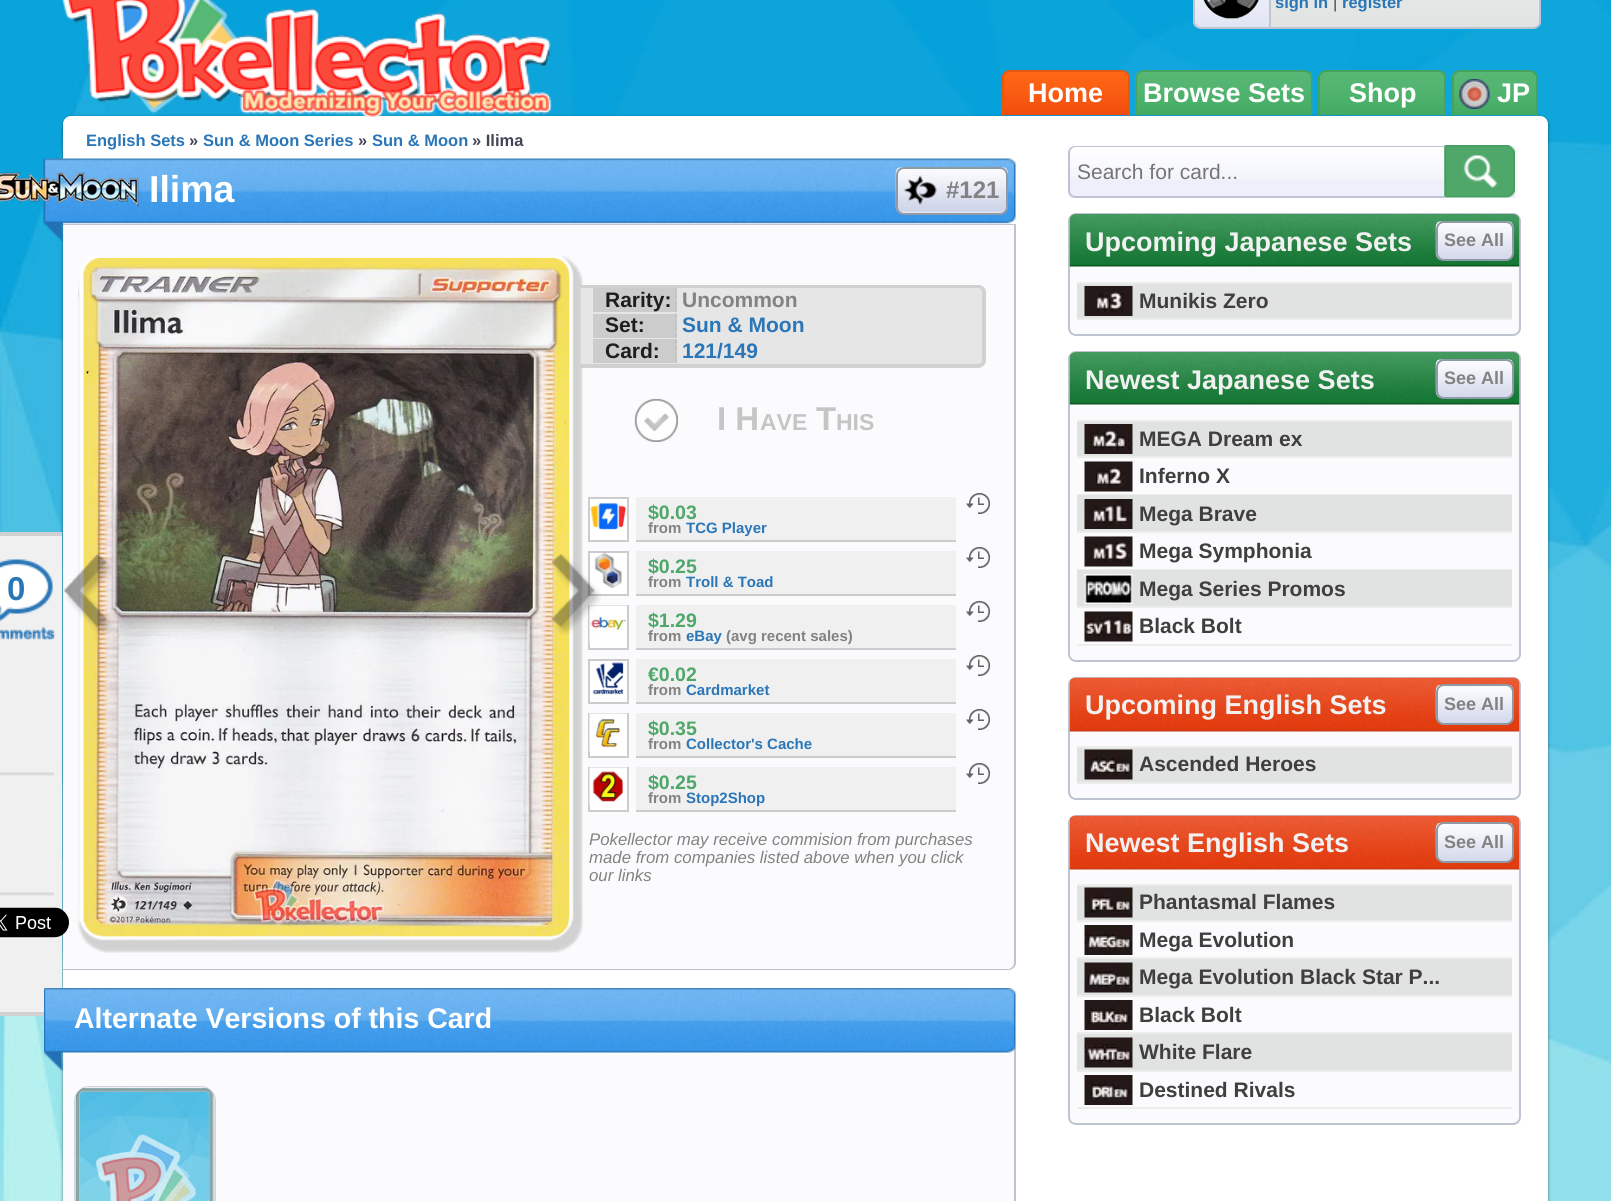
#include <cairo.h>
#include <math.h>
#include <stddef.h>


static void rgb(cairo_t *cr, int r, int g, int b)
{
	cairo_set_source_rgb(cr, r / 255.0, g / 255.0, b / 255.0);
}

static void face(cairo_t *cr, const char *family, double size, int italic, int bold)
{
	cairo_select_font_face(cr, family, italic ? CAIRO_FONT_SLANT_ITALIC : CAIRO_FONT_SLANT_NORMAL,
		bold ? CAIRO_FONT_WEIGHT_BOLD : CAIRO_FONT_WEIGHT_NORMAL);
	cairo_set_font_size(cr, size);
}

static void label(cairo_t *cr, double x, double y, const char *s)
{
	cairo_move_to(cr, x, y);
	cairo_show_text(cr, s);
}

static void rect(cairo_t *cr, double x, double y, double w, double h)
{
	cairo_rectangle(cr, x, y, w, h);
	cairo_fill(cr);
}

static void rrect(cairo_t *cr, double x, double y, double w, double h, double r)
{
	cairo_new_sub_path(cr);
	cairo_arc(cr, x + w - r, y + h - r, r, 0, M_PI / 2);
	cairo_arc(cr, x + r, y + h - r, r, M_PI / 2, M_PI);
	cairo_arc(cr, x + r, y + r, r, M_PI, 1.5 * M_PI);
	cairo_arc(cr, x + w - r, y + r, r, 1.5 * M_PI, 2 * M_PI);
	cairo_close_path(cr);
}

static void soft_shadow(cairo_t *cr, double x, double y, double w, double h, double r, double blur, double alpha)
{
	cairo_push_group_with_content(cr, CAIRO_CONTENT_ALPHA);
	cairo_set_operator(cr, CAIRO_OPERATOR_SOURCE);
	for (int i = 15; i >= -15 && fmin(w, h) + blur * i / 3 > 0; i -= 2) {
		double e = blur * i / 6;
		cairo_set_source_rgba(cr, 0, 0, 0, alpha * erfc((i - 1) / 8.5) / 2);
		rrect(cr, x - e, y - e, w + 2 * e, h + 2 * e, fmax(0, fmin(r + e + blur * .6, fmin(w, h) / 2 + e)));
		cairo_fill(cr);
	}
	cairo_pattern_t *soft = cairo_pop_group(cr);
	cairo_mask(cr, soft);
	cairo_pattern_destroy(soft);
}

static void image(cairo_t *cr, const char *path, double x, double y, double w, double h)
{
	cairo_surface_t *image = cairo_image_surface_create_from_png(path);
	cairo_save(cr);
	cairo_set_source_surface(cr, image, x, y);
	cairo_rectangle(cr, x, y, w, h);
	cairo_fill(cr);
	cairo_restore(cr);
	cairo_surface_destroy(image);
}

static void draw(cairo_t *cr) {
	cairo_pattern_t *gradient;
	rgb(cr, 255, 255, 255);
	cairo_paint(cr);
	image(cr, "image0.png", 0, 0, 1611, 1201);
	rgb(cr, 0, 0, 0);
	soft_shadow(cr, 63, 117, 1485, 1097, 8, 1.5, 0.5);
	rgb(cr, 255, 255, 255);
	rrect(cr, 63, 116, 1485, 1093, 8);
	cairo_fill(cr);
	image(cr, "image1.png", 62, 0, 490, 118);
	cairo_save(cr);
	rrect(cr, 1193, -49, 348, 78, 8);
	cairo_clip(cr);
	gradient = cairo_pattern_create_linear(1367, -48, 1367, 27);
	cairo_pattern_add_color_stop_rgba(gradient, 0, 0.992, 0.992, 0.996, 1);
	cairo_pattern_add_color_stop_rgba(gradient, 1, 0.882, 0.898, 0.953, 1);
	cairo_set_source(cr, gradient);
	cairo_pattern_destroy(gradient);
	rect(cr, 1193, 0, 348, 27);
	cairo_restore(cr);
	rrect(cr, 1194, -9, 346, 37, 7);
	rgb(cr, 191, 196, 209);
	cairo_stroke(cr);
	image(cr, "image2.png", 1203, 0, 56, 19);
	gradient = cairo_pattern_create_linear(1404, -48, 1404, 27);
	cairo_pattern_add_color_stop_rgba(gradient, 0, 0.929, 0.929, 0.929, 1);
	cairo_pattern_add_color_stop_rgba(gradient, 1, 0.882, 0.89, 0.89, 1);
	cairo_set_source(cr, gradient);
	cairo_pattern_destroy(gradient);
	cairo_new_path(cr);
	cairo_move_to(cr, 1269, -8);
	cairo_line_to(cr, 1530, -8);
	cairo_curve_to(cr, 1534.5, -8, 1538, -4.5, 1538, 0);
	cairo_line_to(cr, 1538, 19);
	cairo_curve_to(cr, 1538, 23.5, 1534.5, 27, 1530, 27);
	cairo_line_to(cr, 1269, 27);
	cairo_close_path(cr);
	cairo_fill(cr);
	rgb(cr, 191, 196, 209);
	rect(cr, 1269, 0, 2, 27);
	face(cr, "Liberation Sans", 16.5, 0, 1);
	rgb(cr, 42, 118, 183);
	label(cr, 1275, 8, "sign in");
	face(cr, "Liberation Sans", 16.5, 0, 0);
	rgb(cr, 65, 69, 84);
	label(cr, 1333, 8, "|");
	face(cr, "Liberation Sans", 16.5, 0, 1);
	rgb(cr, 42, 118, 183);
	label(cr, 1342, 8, "register");
	image(cr, "image3.png", 1002, 70, 128, 45);
	rgb(cr, 230, 87, 17);
	cairo_set_fill_rule(cr, CAIRO_FILL_RULE_EVEN_ODD);
	cairo_new_path(cr);
	cairo_move_to(cr, 1010, 70);
	cairo_line_to(cr, 1122, 70);
	cairo_curve_to(cr, 1126, 70, 1130, 74, 1130, 78);
	cairo_line_to(cr, 1130, 116);
	cairo_line_to(cr, 1002, 116);
	cairo_line_to(cr, 1002, 78);
	cairo_curve_to(cr, 1002, 74, 1005, 70, 1010, 70);
	cairo_close_path(cr);
	cairo_move_to(cr, 1010, 72);
	cairo_line_to(cr, 1122, 72);
	cairo_curve_to(cr, 1125, 72, 1128, 75, 1128, 78);
	cairo_line_to(cr, 1128, 116);
	cairo_line_to(cr, 1004, 116);
	cairo_line_to(cr, 1004, 78);
	cairo_curve_to(cr, 1004, 75, 1006, 72, 1010, 72);
	cairo_close_path(cr);
	cairo_fill(cr);
	face(cr, "Liberation Sans", 27, 0, 1);
	rgb(cr, 255, 255, 255);
	label(cr, 1028, 102, "Home");
	image(cr, "image4.png", 1135, 71, 178, 44);
	rgb(cr, 69, 162, 97);
	cairo_new_path(cr);
	cairo_move_to(cr, 1143, 70);
	cairo_line_to(cr, 1305, 70);
	cairo_curve_to(cr, 1309, 70, 1312, 74, 1312, 78);
	cairo_line_to(cr, 1312, 116);
	cairo_line_to(cr, 1136, 116);
	cairo_line_to(cr, 1136, 78);
	cairo_curve_to(cr, 1136, 74, 1139, 70, 1143, 70);
	cairo_close_path(cr);
	cairo_move_to(cr, 1143, 72);
	cairo_line_to(cr, 1305, 72);
	cairo_curve_to(cr, 1308, 72, 1311, 75, 1311, 78);
	cairo_line_to(cr, 1311, 116);
	cairo_line_to(cr, 1137, 116);
	cairo_line_to(cr, 1137, 78);
	cairo_curve_to(cr, 1137, 75, 1140, 72, 1143, 72);
	cairo_close_path(cr);
	cairo_fill(cr);
	rgb(cr, 255, 255, 255);
	label(cr, 1143, 102, "Browse Sets");
	image(cr, "image5.png", 1318, 71, 128, 44);
	rgb(cr, 69, 162, 97);
	cairo_new_path(cr);
	cairo_move_to(cr, 1326, 70);
	cairo_line_to(cr, 1438, 70);
	cairo_curve_to(cr, 1443, 70, 1446, 74, 1446, 78);
	cairo_line_to(cr, 1446, 116);
	cairo_line_to(cr, 1318, 116);
	cairo_line_to(cr, 1318, 78);
	cairo_curve_to(cr, 1318, 74, 1322, 70, 1326, 70);
	cairo_close_path(cr);
	cairo_move_to(cr, 1326, 72);
	cairo_line_to(cr, 1438, 72);
	cairo_curve_to(cr, 1442, 72, 1444, 75, 1444, 78);
	cairo_line_to(cr, 1444, 116);
	cairo_line_to(cr, 1320, 116);
	cairo_line_to(cr, 1320, 78);
	cairo_curve_to(cr, 1320, 75, 1323, 72, 1326, 72);
	cairo_close_path(cr);
	cairo_fill(cr);
	rgb(cr, 255, 255, 255);
	label(cr, 1349, 102, "Shop");
	image(cr, "image6.png", 1452, 71, 86, 44);
	rgb(cr, 69, 162, 97);
	cairo_new_path(cr);
	cairo_move_to(cr, 1460, 70);
	cairo_line_to(cr, 1530, 70);
	cairo_curve_to(cr, 1534, 70, 1538, 74, 1538, 78);
	cairo_line_to(cr, 1538, 116);
	cairo_line_to(cr, 1452, 116);
	cairo_line_to(cr, 1452, 78);
	cairo_curve_to(cr, 1452, 74, 1455, 70, 1460, 70);
	cairo_close_path(cr);
	cairo_move_to(cr, 1460, 72);
	cairo_line_to(cr, 1530, 72);
	cairo_curve_to(cr, 1533, 72, 1536, 75, 1536, 78);
	cairo_line_to(cr, 1536, 116);
	cairo_line_to(cr, 1454, 116);
	cairo_line_to(cr, 1454, 78);
	cairo_curve_to(cr, 1454, 75, 1456, 72, 1460, 72);
	cairo_close_path(cr);
	cairo_fill(cr);
	image(cr, "image7.png", 1459, 79, 31, 30);
	rgb(cr, 255, 255, 255);
	label(cr, 1497, 102, "JP");
	face(cr, "Liberation Sans", 16.5, 0, 1);
	rgb(cr, 42, 118, 183);
	label(cr, 86, 146, "English Sets");
	rgb(cr, 65, 69, 84);
	label(cr, 189, 146, "»");
	rgb(cr, 42, 118, 183);
	label(cr, 203, 146, "Sun & Moon Series");
	rgb(cr, 65, 69, 84);
	label(cr, 358, 146, "»");
	rgb(cr, 42, 118, 183);
	label(cr, 372, 146, "Sun & Moon");
	rgb(cr, 65, 69, 84);
	label(cr, 472, 146, "» Ilima");
	rgb(cr, 251, 251, 253);
	cairo_new_path(cr);
	cairo_move_to(cr, 63, 224);
	cairo_line_to(cr, 1016, 224);
	cairo_line_to(cr, 1016, 963);
	cairo_curve_to(cr, 1016, 967.5, 1012.5, 971, 1008, 971);
	cairo_line_to(cr, 63, 971);
	cairo_close_path(cr);
	cairo_fill(cr);
	rgb(cr, 191, 196, 209);
	cairo_new_path(cr);
	cairo_move_to(cr, 63, 224);
	cairo_line_to(cr, 1016, 224);
	cairo_line_to(cr, 1016, 963);
	cairo_curve_to(cr, 1016, 967, 1012, 970, 1008, 970);
	cairo_line_to(cr, 63, 970);
	cairo_close_path(cr);
	cairo_move_to(cr, 63, 225);
	cairo_line_to(cr, 1014, 225);
	cairo_line_to(cr, 1014, 963);
	cairo_curve_to(cr, 1014, 966, 1011, 969, 1008, 969);
	cairo_line_to(cr, 63, 969);
	cairo_close_path(cr);
	cairo_fill(cr);
	image(cr, "image8.png", 43, 158, 973, 84);
	image(cr, "image9.png", 0, 172, 139, 34);
	face(cr, "Liberation Sans", 37.5, 0, 1);
	rgb(cr, 255, 255, 255);
	label(cr, 149, 202, "Ilima");
	image(cr, "image10.png", 895, 167, 113, 47);
	rrect(cr, 897, 168, 110, 46, 7);
	rgb(cr, 142, 155, 166);
	cairo_stroke(cr);
	image(cr, "image11.png", 903, 175, 34, 31);
	face(cr, "Liberation Sans", 24, 0, 1);
	rgb(cr, 130, 130, 130);
	label(cr, 946, 198, "#121");
	rgb(cr, 240, 240, 240);
	rect(cr, 0, 536, 62, 476);
	rgb(cr, 209, 209, 210);
	cairo_new_path(cr);
	cairo_move_to(cr, -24, 532);
	cairo_line_to(cr, 62, 532);
	cairo_line_to(cr, 62, 1016);
	cairo_line_to(cr, -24, 1016);
	cairo_curve_to(cr, -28, 1016, -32, 1012, -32, 1008);
	cairo_line_to(cr, -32, 540);
	cairo_curve_to(cr, -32, 536, -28, 532, -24, 532);
	cairo_close_path(cr);
	cairo_move_to(cr, -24, 536);
	cairo_line_to(cr, 62, 536);
	cairo_line_to(cr, 62, 1012);
	cairo_line_to(cr, -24, 1012);
	cairo_curve_to(cr, -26, 1012, -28, 1010, -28, 1008);
	cairo_line_to(cr, -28, 540);
	cairo_curve_to(cr, -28, 538, -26, 536, -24, 536);
	cairo_close_path(cr);
	cairo_fill(cr);
	image(cr, "image12.png", 0, 559, 55, 81);
	face(cr, "Liberation Sans", 33, 0, 1);
	rgb(cr, 42, 118, 183);
	label(cr, 7, 600, "0");
	image(cr, "image13.png", 0, 772, 54, 4);
	image(cr, "image13.png", 0, 892, 54, 4);
	image(cr, "image14.png", 0, 907, 69, 31);
	image(cr, "image15.png", 78, 255, 505, 698);
	image(cr, "image16.png", 83, 257, 487, 680);
	image(cr, "image17.png", 64, 554, 50, 81);
	rgb(cr, 255, 255, 255);
	cairo_rectangle(cr, 589, 552, 39, 43);
	cairo_fill_preserve(cr);
	rgb(cr, 204, 204, 204);
	cairo_stroke(cr);
	image(cr, "image22.png", 594, 552, 28, 37);
	rgb(cr, 255, 255, 255);
	rect(cr, 590, 643, 37, 5);
	cairo_rectangle(cr, 589, 606, 39, 43);
	rgb(cr, 204, 204, 204);
	cairo_stroke(cr);
	image(cr, "image23.png", 589, 605, 38, 38);
	image(cr, "image18.png", 551, 554, 50, 81);
	rgb(cr, 230, 230, 230);
	cairo_new_path(cr);
	cairo_move_to(cr, 581, 285);
	cairo_line_to(cr, 978, 285);
	cairo_curve_to(cr, 982.5, 285, 986, 288.5, 986, 293);
	cairo_line_to(cr, 986, 360);
	cairo_curve_to(cr, 986, 364.5, 982.5, 368, 978, 368);
	cairo_line_to(cr, 581, 368);
	cairo_close_path(cr);
	cairo_fill(cr);
	rgb(cr, 209, 209, 210);
	cairo_new_path(cr);
	cairo_move_to(cr, 580, 285);
	cairo_line_to(cr, 978, 285);
	cairo_curve_to(cr, 982, 285, 986, 288, 986, 292);
	cairo_line_to(cr, 986, 360);
	cairo_curve_to(cr, 986, 364, 982, 368, 978, 368);
	cairo_line_to(cr, 580, 368);
	cairo_close_path(cr);
	cairo_move_to(cr, 580, 288);
	cairo_line_to(cr, 978, 288);
	cairo_curve_to(cr, 980, 288, 982, 290, 982, 292);
	cairo_line_to(cr, 982, 360);
	cairo_curve_to(cr, 982, 362, 980, 364, 978, 364);
	cairo_line_to(cr, 580, 364);
	cairo_close_path(cr);
	cairo_fill(cr);
	rgb(cr, 204, 204, 204);
	rect(cr, 593, 288, 84, 24);
	cairo_new_path(cr);
	cairo_move_to(cr, 676, 288);
	cairo_line_to(cr, 676, 312);
	rgb(cr, 192, 192, 192);
	cairo_set_line_width(cr, 1.5);
	cairo_set_dash(cr, (double[]){4.5, 2}, 2, 0);
	cairo_stroke(cr);
	face(cr, "Liberation Sans", 21, 0, 1);
	rgb(cr, 30, 30, 30);
	label(cr, 605, 307, "Rarity:");
	rgb(cr, 130, 130, 130);
	label(cr, 682, 307, "Uncommon");
	rgb(cr, 204, 204, 204);
	rect(cr, 593, 314, 84, 24);
	cairo_new_path(cr);
	cairo_move_to(cr, 676, 313.5);
	cairo_line_to(cr, 676, 337.5);
	rgb(cr, 192, 192, 192);
	cairo_stroke(cr);
	rgb(cr, 30, 30, 30);
	label(cr, 605, 332, "Set:");
	rgb(cr, 42, 118, 183);
	label(cr, 682, 332, "Sun & Moon");
	rgb(cr, 204, 204, 204);
	rect(cr, 593, 339, 84, 24);
	cairo_new_path(cr);
	cairo_move_to(cr, 676, 339);
	cairo_line_to(cr, 676, 363);
	rgb(cr, 192, 192, 192);
	cairo_stroke(cr);
	rgb(cr, 30, 30, 30);
	label(cr, 605, 358, "Card:");
	rgb(cr, 42, 118, 183);
	label(cr, 682, 358, "121/149");
	image(cr, "image19.png", 634, 398, 44, 44);
	face(cr, "Liberation Sans", 33, 0, 1);
	rgb(cr, 197, 197, 197);
	label(cr, 717, 430, "I H");
	face(cr, "Liberation Sans", 23, 0, 1);
	label(cr, 760, 430, "AVE");
	face(cr, "Liberation Sans", 33, 0, 1);
	label(cr, 816, 430, "T");
	face(cr, "Liberation Sans", 23, 0, 1);
	label(cr, 836, 430, "HIS");
	rgb(cr, 255, 255, 255);
	cairo_rectangle(cr, 589, 498, 39, 43);
	cairo_fill_preserve(cr);
	rgb(cr, 204, 204, 204);
	cairo_set_line_width(cr, 2);
	cairo_set_dash(cr, NULL, 0, 0);
	cairo_stroke(cr);
	image(cr, "image20.png", 590, 503, 37, 27);
	rgb(cr, 240, 240, 240);
	rect(cr, 636, 497, 320, 43);
	rgb(cr, 204, 204, 204);
	rect(cr, 636, 540, 320, 2);
	face(cr, "Liberation Sans", 19.5, 0, 1);
	rgb(cr, 79, 167, 106);
	label(cr, 648, 519, "$0.03");
	face(cr, "Liberation Sans", 15, 0, 1);
	rgb(cr, 130, 130, 130);
	label(cr, 648, 533, "from");
	rgb(cr, 42, 118, 183);
	label(cr, 686, 533, "TCG Player");
	image(cr, "image21.png", 966, 493, 24, 21);
	rgb(cr, 240, 240, 240);
	rect(cr, 636, 551, 320, 43);
	rgb(cr, 204, 204, 204);
	rect(cr, 636, 594, 320, 2);
	face(cr, "Liberation Sans", 19.5, 0, 1);
	rgb(cr, 79, 167, 106);
	label(cr, 648, 573, "$0.25");
	face(cr, "Liberation Sans", 15, 0, 1);
	rgb(cr, 130, 130, 130);
	label(cr, 648, 587, "from");
	rgb(cr, 42, 118, 183);
	label(cr, 686, 587, "Troll & Toad");
	image(cr, "image21.png", 966, 547, 24, 21);
	rgb(cr, 240, 240, 240);
	rect(cr, 636, 605, 320, 43);
	rgb(cr, 204, 204, 204);
	rect(cr, 636, 648, 320, 2);
	face(cr, "Liberation Sans", 19.5, 0, 1);
	rgb(cr, 79, 167, 106);
	label(cr, 648, 627, "$1.29");
	face(cr, "Liberation Sans", 15, 0, 1);
	rgb(cr, 130, 130, 130);
	label(cr, 648, 641, "from");
	rgb(cr, 42, 118, 183);
	label(cr, 686, 641, "eBay");
	rgb(cr, 130, 130, 130);
	label(cr, 726, 641, "(avg recent sales)");
	image(cr, "image21.png", 966, 601, 24, 21);
	rgb(cr, 255, 255, 255);
	cairo_rectangle(cr, 589, 660, 39, 43);
	cairo_fill_preserve(cr);
	rgb(cr, 204, 204, 204);
	cairo_stroke(cr);
	image(cr, "image24.png", 592, 662, 32, 33);
	rgb(cr, 240, 240, 240);
	rect(cr, 636, 659, 320, 43);
	rgb(cr, 204, 204, 204);
	rect(cr, 636, 702, 320, 2);
	face(cr, "Liberation Sans", 19.5, 0, 1);
	rgb(cr, 79, 167, 106);
	label(cr, 648, 681, "€0.02");
	face(cr, "Liberation Sans", 15, 0, 1);
	rgb(cr, 130, 130, 130);
	label(cr, 648, 695, "from");
	rgb(cr, 42, 118, 183);
	label(cr, 686, 695, "Cardmarket");
	image(cr, "image21.png", 966, 655, 24, 21);
	rgb(cr, 255, 255, 255);
	rect(cr, 590, 751, 37, 5);
	cairo_rectangle(cr, 589, 714, 39, 43);
	rgb(cr, 204, 204, 204);
	cairo_stroke(cr);
	image(cr, "image25.png", 589, 713, 38, 38);
	rgb(cr, 240, 240, 240);
	rect(cr, 636, 713, 320, 43);
	rgb(cr, 204, 204, 204);
	rect(cr, 636, 756, 320, 2);
	face(cr, "Liberation Sans", 19.5, 0, 1);
	rgb(cr, 79, 167, 106);
	label(cr, 648, 735, "$0.35");
	face(cr, "Liberation Sans", 15, 0, 1);
	rgb(cr, 130, 130, 130);
	label(cr, 648, 749, "from");
	rgb(cr, 42, 118, 183);
	label(cr, 686, 749, "Collector's Cache");
	image(cr, "image21.png", 966, 709, 24, 21);
	rgb(cr, 255, 255, 255);
	cairo_rectangle(cr, 589, 768, 39, 43);
	cairo_fill_preserve(cr);
	rgb(cr, 204, 204, 204);
	cairo_stroke(cr);
	image(cr, "image26.png", 589, 767, 38, 38);
	rgb(cr, 240, 240, 240);
	rect(cr, 636, 767, 320, 43);
	rgb(cr, 204, 204, 204);
	rect(cr, 636, 810, 320, 2);
	face(cr, "Liberation Sans", 19.5, 0, 1);
	rgb(cr, 79, 167, 106);
	label(cr, 648, 789, "$0.25");
	face(cr, "Liberation Sans", 15, 0, 1);
	rgb(cr, 130, 130, 130);
	label(cr, 648, 803, "from");
	rgb(cr, 42, 118, 183);
	label(cr, 686, 803, "Stop2Shop");
	image(cr, "image21.png", 966, 763, 24, 21);
	face(cr, "Liberation Sans", 16.8, 1, 0);
	rgb(cr, 130, 130, 130);
	label(cr, 589, 845, "Pokellector may receive commision from purchases");
	label(cr, 589, 863, "made from companies listed above when you click");
	label(cr, 589, 881, "our links");
	rgb(cr, 251, 251, 253);
	rect(cr, 63, 1048, 951, 153);
	rgb(cr, 191, 196, 209);
	cairo_new_path(cr);
	cairo_move_to(cr, 63, 1047);
	cairo_line_to(cr, 1016, 1047);
	cairo_line_to(cr, 1016, 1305);
	cairo_curve_to(cr, 1016, 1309, 1012, 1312, 1008, 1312);
	cairo_line_to(cr, 63, 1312);
	cairo_close_path(cr);
	cairo_move_to(cr, 63, 1048);
	cairo_line_to(cr, 1014, 1048);
	cairo_line_to(cr, 1014, 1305);
	cairo_curve_to(cr, 1014, 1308, 1011, 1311, 1008, 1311);
	cairo_line_to(cr, 63, 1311);
	cairo_close_path(cr);
	cairo_fill(cr);
	image(cr, "image27.png", 44, 988, 972, 84);
	face(cr, "Liberation Sans", 28.5, 0, 1);
	rgb(cr, 255, 255, 255);
	label(cr, 74, 1028, "Alternate Versions of this Card");
	rrect(cr, 75, 1087, 140, 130, 14);
	rgb(cr, 209, 213, 222);
	cairo_stroke(cr);
	image(cr, "image28.png", 75, 1087, 140, 114);
	rgb(cr, 251, 251, 253);
	rect(cr, 1068, 146, 450, 52);
	rgb(cr, 237, 239, 251);
	cairo_new_path(cr);
	cairo_move_to(cr, 1076, 146);
	cairo_line_to(cr, 1445, 146);
	cairo_line_to(cr, 1445, 198);
	cairo_line_to(cr, 1076, 198);
	cairo_curve_to(cr, 1071.5, 198, 1068, 194.5, 1068, 190);
	cairo_line_to(cr, 1068, 154);
	cairo_curve_to(cr, 1068, 149.5, 1071.5, 146, 1076, 146);
	cairo_close_path(cr);
	cairo_fill(cr);
	image(cr, "image29.png", 1068, 146, 377, 34);
	rgb(cr, 191, 193, 215);
	cairo_new_path(cr);
	cairo_move_to(cr, 1076, 146);
	cairo_line_to(cr, 1444, 146);
	cairo_line_to(cr, 1444, 198);
	cairo_line_to(cr, 1076, 198);
	cairo_curve_to(cr, 1071, 198, 1068, 195, 1068, 190);
	cairo_line_to(cr, 1068, 153);
	cairo_curve_to(cr, 1068, 149, 1071, 146, 1076, 146);
	cairo_close_path(cr);
	cairo_move_to(cr, 1076, 147);
	cairo_line_to(cr, 1444, 147);
	cairo_line_to(cr, 1444, 196);
	cairo_line_to(cr, 1076, 196);
	cairo_curve_to(cr, 1072, 196, 1070, 194, 1070, 190);
	cairo_line_to(cr, 1070, 153);
	cairo_curve_to(cr, 1070, 150, 1072, 147, 1076, 147);
	cairo_close_path(cr);
	cairo_fill(cr);
	face(cr, "Liberation Sans", 21, 0, 0);
	rgb(cr, 117, 117, 117);
	label(cr, 1077, 179, "Search for card...");
	rgb(cr, 237, 239, 251);
	rect(cr, 1445, 194, 70, 4);
	image(cr, "image30.png", 1444, 145, 71, 53);
	image(cr, "image31.png", 1444, 145, 71, 53);
	rgb(cr, 251, 251, 253);
	rrect(cr, 1069, 214, 451, 121, 7);
	cairo_fill_preserve(cr);
	rgb(cr, 191, 196, 209);
	cairo_stroke(cr);
	image(cr, "image32.png", 1069, 214, 451, 53);
	face(cr, "Liberation Sans", 27, 0, 1);
	rgb(cr, 241, 241, 241);
	label(cr, 1085, 251, "Upcoming Japanese Sets");
	image(cr, "image33.png", 1435, 221, 79, 40);
	rrect(cr, 1437, 222, 76, 38, 7);
	rgb(cr, 142, 155, 166);
	cairo_stroke(cr);
	face(cr, "Liberation Sans", 18, 0, 1);
	rgb(cr, 130, 130, 130);
	label(cr, 1444, 246, "See All");
	rgb(cr, 225, 227, 227);
	rect(cr, 1077, 284, 435, 34);
	rgb(cr, 237, 237, 236);
	rect(cr, 1077, 282, 435, 2);
	rect(cr, 1077, 318, 435, 2);
	image(cr, "image34.png", 1084, 286, 49, 30);
	face(cr, "Liberation Sans", 21, 0, 1);
	rgb(cr, 64, 62, 63);
	label(cr, 1139, 308, "Munikis Zero");
	rgb(cr, 251, 251, 253);
	rrect(cr, 1069, 352, 451, 309, 7);
	cairo_fill_preserve(cr);
	rgb(cr, 191, 196, 209);
	cairo_stroke(cr);
	image(cr, "image32.png", 1069, 352, 451, 53);
	face(cr, "Liberation Sans", 27, 0, 1);
	rgb(cr, 241, 241, 241);
	label(cr, 1085, 389, "Newest Japanese Sets");
	image(cr, "image33.png", 1435, 359, 79, 40);
	rrect(cr, 1437, 360, 76, 38, 7);
	rgb(cr, 142, 155, 166);
	cairo_stroke(cr);
	face(cr, "Liberation Sans", 18, 0, 1);
	rgb(cr, 130, 130, 130);
	label(cr, 1444, 384, "See All");
	rgb(cr, 225, 227, 227);
	rect(cr, 1077, 422, 435, 34);
	rgb(cr, 237, 237, 236);
	rect(cr, 1077, 420, 435, 2);
	rect(cr, 1077, 456, 435, 2);
	image(cr, "image35.png", 1084, 424, 49, 30);
	face(cr, "Liberation Sans", 21, 0, 1);
	rgb(cr, 64, 62, 63);
	label(cr, 1139, 446, "MEGA Dream ex");
	rgb(cr, 237, 237, 236);
	rect(cr, 1077, 494, 435, 1);
	image(cr, "image36.png", 1084, 461, 49, 31);
	rgb(cr, 64, 62, 63);
	label(cr, 1139, 483, "Inferno X");
	rgb(cr, 225, 227, 227);
	rect(cr, 1077, 495, 435, 36);
	rgb(cr, 237, 237, 236);
	rect(cr, 1077, 531, 435, 2);
	image(cr, "image37.png", 1084, 499, 49, 30);
	rgb(cr, 64, 62, 63);
	label(cr, 1139, 521, "Mega Brave");
	rgb(cr, 237, 237, 236);
	rect(cr, 1077, 569, 435, 1);
	image(cr, "image38.png", 1084, 536, 49, 31);
	rgb(cr, 64, 62, 63);
	label(cr, 1139, 558, "Mega Symphonia");
	rgb(cr, 225, 227, 227);
	rect(cr, 1077, 570, 435, 36);
	rgb(cr, 237, 237, 236);
	rect(cr, 1077, 606, 435, 2);
	image(cr, "image39.png", 1084, 574, 49, 30);
	rgb(cr, 64, 62, 63);
	label(cr, 1139, 596, "Mega Series Promos");
	rgb(cr, 237, 237, 236);
	rect(cr, 1077, 644, 435, 2);
	image(cr, "image40.png", 1084, 611, 49, 31);
	rgb(cr, 64, 62, 63);
	label(cr, 1139, 633, "Black Bolt");
	rgb(cr, 251, 251, 253);
	rrect(cr, 1069, 678, 451, 121, 7);
	cairo_fill_preserve(cr);
	rgb(cr, 191, 196, 209);
	cairo_stroke(cr);
	image(cr, "image41.png", 1069, 677, 451, 55);
	face(cr, "Liberation Sans", 27, 0, 1);
	rgb(cr, 241, 241, 241);
	label(cr, 1085, 714, "Upcoming English Sets");
	image(cr, "image42.png", 1435, 685, 79, 39);
	rrect(cr, 1437, 685, 76, 39, 7);
	rgb(cr, 142, 155, 166);
	cairo_stroke(cr);
	face(cr, "Liberation Sans", 18, 0, 1);
	rgb(cr, 130, 130, 130);
	label(cr, 1444, 710, "See All");
	rgb(cr, 225, 227, 227);
	rect(cr, 1077, 748, 435, 34);
	rgb(cr, 237, 237, 236);
	rect(cr, 1077, 746, 435, 2);
	rect(cr, 1077, 782, 435, 2);
	image(cr, "image43.png", 1084, 749, 49, 31);
	face(cr, "Liberation Sans", 21, 0, 1);
	rgb(cr, 64, 62, 63);
	label(cr, 1139, 771, "Ascended Heroes");
	rgb(cr, 251, 251, 253);
	rrect(cr, 1069, 816, 451, 308, 7);
	cairo_fill_preserve(cr);
	rgb(cr, 191, 196, 209);
	cairo_stroke(cr);
	image(cr, "image41.png", 1069, 815, 451, 55);
	face(cr, "Liberation Sans", 27, 0, 1);
	rgb(cr, 241, 241, 241);
	label(cr, 1085, 852, "Newest English Sets");
	image(cr, "image42.png", 1435, 823, 79, 39);
	rrect(cr, 1437, 823, 76, 39, 7);
	rgb(cr, 142, 155, 166);
	cairo_stroke(cr);
	face(cr, "Liberation Sans", 18, 0, 1);
	rgb(cr, 130, 130, 130);
	label(cr, 1444, 848, "See All");
	rgb(cr, 225, 227, 227);
	rect(cr, 1077, 886, 435, 34);
	rgb(cr, 237, 237, 236);
	rect(cr, 1077, 884, 435, 2);
	rect(cr, 1077, 920, 435, 2);
	image(cr, "image44.png", 1084, 887, 49, 31);
	face(cr, "Liberation Sans", 21, 0, 1);
	rgb(cr, 64, 62, 63);
	label(cr, 1139, 909, "Phantasmal Flames");
	rgb(cr, 237, 237, 236);
	rect(cr, 1077, 957, 435, 2);
	image(cr, "image45.png", 1084, 925, 49, 30);
	rgb(cr, 64, 62, 63);
	label(cr, 1139, 947, "Mega Evolution");
	rgb(cr, 225, 227, 227);
	rect(cr, 1077, 959, 435, 36);
	rgb(cr, 237, 237, 236);
	rect(cr, 1077, 995, 435, 2);
	image(cr, "image46.png", 1084, 962, 49, 31);
	rgb(cr, 64, 62, 63);
	label(cr, 1139, 984, "Mega Evolution Black Star P...");
	rgb(cr, 237, 237, 236);
	rect(cr, 1077, 1032, 435, 2);
	image(cr, "image47.png", 1084, 1000, 49, 30);
	rgb(cr, 64, 62, 63);
	label(cr, 1139, 1022, "Black Bolt");
	rgb(cr, 225, 227, 227);
	rect(cr, 1077, 1034, 435, 36);
	rgb(cr, 237, 237, 236);
	rect(cr, 1077, 1070, 435, 2);
	image(cr, "image48.png", 1084, 1037, 49, 31);
	rgb(cr, 64, 62, 63);
	label(cr, 1139, 1059, "White Flare");
	rgb(cr, 237, 237, 236);
	rect(cr, 1077, 1107, 435, 2);
	image(cr, "image49.png", 1084, 1075, 49, 30);
	rgb(cr, 64, 62, 63);
	label(cr, 1139, 1097, "Destined Rivals");
}

int main(void) {
	cairo_surface_t *surface = cairo_image_surface_create(CAIRO_FORMAT_RGB24, 1611, 1201);
	cairo_t *cr = cairo_create(surface);
	cairo_font_options_t *options = cairo_font_options_create();
	cairo_font_options_set_hint_metrics(options, CAIRO_HINT_METRICS_OFF);
	cairo_font_options_set_hint_style(options, CAIRO_HINT_STYLE_NONE);
	cairo_set_font_options(cr, options);
	cairo_set_miter_limit(cr, 4);
	draw(cr);
	cairo_surface_write_to_png(surface, "render.png");
	cairo_font_options_destroy(options);
	cairo_destroy(cr);
	cairo_surface_destroy(surface);
	return 0;
}
